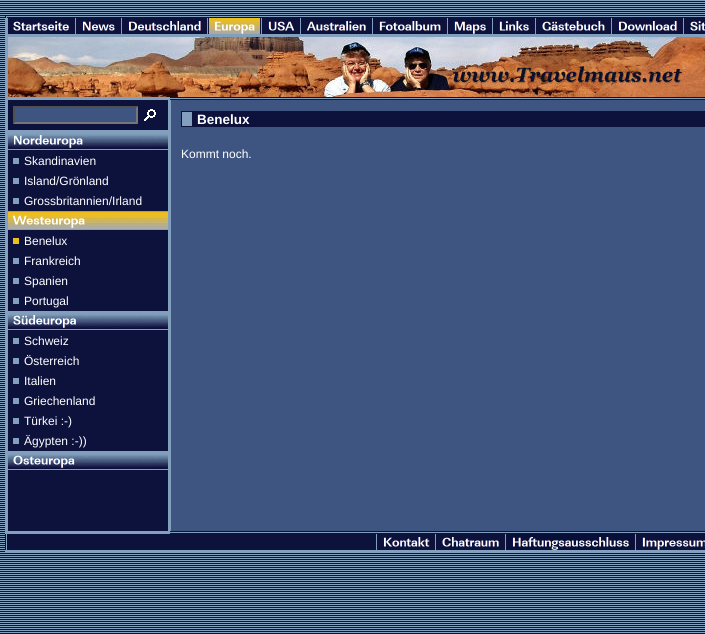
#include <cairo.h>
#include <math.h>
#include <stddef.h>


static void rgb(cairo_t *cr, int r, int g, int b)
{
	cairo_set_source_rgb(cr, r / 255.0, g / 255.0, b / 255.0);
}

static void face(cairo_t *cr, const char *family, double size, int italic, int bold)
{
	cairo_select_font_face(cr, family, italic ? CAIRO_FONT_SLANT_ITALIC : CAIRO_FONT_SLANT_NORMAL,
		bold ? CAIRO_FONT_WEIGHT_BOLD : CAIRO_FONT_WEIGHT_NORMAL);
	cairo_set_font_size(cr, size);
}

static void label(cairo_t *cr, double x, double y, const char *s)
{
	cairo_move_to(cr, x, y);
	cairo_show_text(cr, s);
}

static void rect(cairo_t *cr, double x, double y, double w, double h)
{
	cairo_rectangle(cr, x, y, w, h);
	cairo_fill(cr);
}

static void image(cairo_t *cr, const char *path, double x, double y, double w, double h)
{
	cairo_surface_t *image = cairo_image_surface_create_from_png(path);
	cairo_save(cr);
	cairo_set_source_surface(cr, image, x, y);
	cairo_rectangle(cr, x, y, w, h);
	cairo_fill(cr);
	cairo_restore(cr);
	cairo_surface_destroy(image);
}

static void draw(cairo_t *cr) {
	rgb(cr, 255, 255, 255);
	cairo_paint(cr);
	image(cr, "image0.png", 0, 0, 705, 634);
	image(cr, "image1.png", 5, 16, 2, 2);
	rgb(cr, 130, 159, 189);
	rect(cr, 5, 18, 3, 16);
	rgb(cr, 13, 18, 61);
	rect(cr, 8, 18, 697, 15);
	image(cr, "image2.png", 13, 21, 56, 10);
	rgb(cr, 130, 159, 189);
	rect(cr, 75, 18, 1, 16);
	image(cr, "image3.png", 82, 21, 33, 10);
	rect(cr, 121, 18, 1, 16);
	image(cr, "image4.png", 128, 21, 73, 10);
	rect(cr, 207, 18, 1, 16);
	image(cr, "image5.png", 209, 18, 51, 16);
	rect(cr, 261, 18, 1, 16);
	image(cr, "image6.png", 268, 21, 27, 10);
	rect(cr, 300, 18, 1, 16);
	image(cr, "image7.png", 307, 21, 59, 10);
	rect(cr, 372, 18, 1, 16);
	image(cr, "image8.png", 379, 21, 62, 10);
	rect(cr, 447, 18, 1, 16);
	image(cr, "image9.png", 454, 21, 32, 13);
	rect(cr, 492, 18, 1, 16);
	image(cr, "image10.png", 499, 21, 30, 10);
	rect(cr, 535, 18, 1, 16);
	image(cr, "image11.png", 542, 21, 63, 10);
	rect(cr, 611, 18, 1, 16);
	image(cr, "image12.png", 618, 21, 59, 10);
	rect(cr, 683, 18, 1, 16);
	image(cr, "image13.png", 690, 21, 15, 10);
	rect(cr, 5, 35, 700, 1);
	rect(cr, 5, 37, 3, 60);
	image(cr, "image14.png", 8, 37, 697, 60);
	rect(cr, 5, 97, 165, 3);
	rect(cr, 5, 100, 3, 431);
	rect(cr, 168, 100, 3, 431);
	rgb(cr, 62, 85, 130);
	rect(cr, 171, 100, 534, 431);
	rgb(cr, 13, 18, 61);
	rect(cr, 181, 111, 524, 16);
	rgb(cr, 130, 159, 189);
	rect(cr, 182, 112, 10, 14);
	face(cr, "Liberation Sans", 13.5, 0, 1);
	rgb(cr, 255, 255, 255);
	label(cr, 197, 124, "Benelux");
	face(cr, "Liberation Sans", 12, 0, 0);
	label(cr, 181, 158, "Kommt noch.");
	rgb(cr, 13, 18, 61);
	rect(cr, 8, 100, 160, 431);
	rgb(cr, 62, 85, 130);
	rect(cr, 13, 106, 125, 18);
	rgb(cr, 79, 79, 79);
	cairo_new_path(cr);
	cairo_move_to(cr, 13, 106);
	cairo_line_to(cr, 138, 106);
	cairo_line_to(cr, 136, 108);
	cairo_line_to(cr, 15, 108);
	cairo_close_path(cr);
	cairo_fill(cr);
	rgb(cr, 118, 118, 118);
	cairo_new_path(cr);
	cairo_move_to(cr, 138, 106);
	cairo_line_to(cr, 138, 124);
	cairo_line_to(cr, 136, 122);
	cairo_line_to(cr, 136, 108);
	cairo_close_path(cr);
	cairo_fill(cr);
	cairo_new_path(cr);
	cairo_move_to(cr, 138, 124);
	cairo_line_to(cr, 13, 124);
	cairo_line_to(cr, 15, 122);
	cairo_line_to(cr, 136, 122);
	cairo_close_path(cr);
	cairo_fill(cr);
	rgb(cr, 79, 79, 79);
	cairo_new_path(cr);
	cairo_move_to(cr, 13, 124);
	cairo_line_to(cr, 13, 106);
	cairo_line_to(cr, 15, 108);
	cairo_line_to(cr, 15, 122);
	cairo_close_path(cr);
	cairo_fill(cr);
	image(cr, "image15.png", 144, 109, 12, 12);
	rgb(cr, 130, 159, 189);
	rect(cr, 8, 130, 160, 2);
	image(cr, "image16.png", 8, 132, 160, 17);
	rect(cr, 8, 149, 160, 1);
	rect(cr, 13, 158, 6, 6);
	rgb(cr, 255, 255, 255);
	label(cr, 24, 165, "Skandinavien");
	rgb(cr, 130, 159, 189);
	rect(cr, 13, 178, 6, 6);
	rgb(cr, 255, 255, 255);
	label(cr, 24, 185, "Island/Grönland");
	rgb(cr, 130, 159, 189);
	rect(cr, 13, 198, 6, 6);
	rgb(cr, 255, 255, 255);
	label(cr, 24, 205, "Grossbritannien/Irland");
	rgb(cr, 130, 159, 189);
	rect(cr, 8, 211, 160, 1);
	image(cr, "image17.png", 8, 212, 160, 17);
	rect(cr, 8, 229, 160, 1);
	rgb(cr, 237, 191, 26);
	rect(cr, 13, 238, 6, 6);
	rgb(cr, 255, 255, 255);
	label(cr, 24, 245, "Benelux");
	rgb(cr, 130, 159, 189);
	rect(cr, 13, 258, 6, 6);
	rgb(cr, 255, 255, 255);
	label(cr, 24, 265, "Frankreich");
	rgb(cr, 130, 159, 189);
	rect(cr, 13, 278, 6, 6);
	rgb(cr, 255, 255, 255);
	label(cr, 24, 285, "Spanien");
	rgb(cr, 130, 159, 189);
	rect(cr, 13, 298, 6, 6);
	rgb(cr, 255, 255, 255);
	label(cr, 24, 305, "Portugal");
	rgb(cr, 130, 159, 189);
	rect(cr, 8, 311, 160, 1);
	image(cr, "image18.png", 8, 312, 160, 17);
	rect(cr, 8, 329, 160, 1);
	rect(cr, 13, 338, 6, 6);
	rgb(cr, 255, 255, 255);
	label(cr, 24, 345, "Schweiz");
	rgb(cr, 130, 159, 189);
	rect(cr, 13, 358, 6, 6);
	rgb(cr, 255, 255, 255);
	label(cr, 24, 365, "Österreich");
	rgb(cr, 130, 159, 189);
	rect(cr, 13, 378, 6, 6);
	rgb(cr, 255, 255, 255);
	label(cr, 24, 385, "Italien");
	rgb(cr, 130, 159, 189);
	rect(cr, 13, 398, 6, 6);
	rgb(cr, 255, 255, 255);
	label(cr, 24, 405, "Griechenland");
	rgb(cr, 130, 159, 189);
	rect(cr, 13, 418, 6, 6);
	rgb(cr, 255, 255, 255);
	label(cr, 24, 425, "Türkei :-)");
	rgb(cr, 130, 159, 189);
	rect(cr, 13, 438, 6, 6);
	rgb(cr, 255, 255, 255);
	label(cr, 24, 445, "Ägypten :-))");
	rgb(cr, 130, 159, 189);
	rect(cr, 8, 451, 160, 1);
	image(cr, "image19.png", 8, 452, 160, 17);
	rect(cr, 8, 469, 160, 1);
	rect(cr, 5, 531, 165, 3);
	rgb(cr, 13, 18, 61);
	rect(cr, 5, 534, 3, 16);
	rgb(cr, 130, 159, 189);
	rect(cr, 6, 534, 1, 16);
	rgb(cr, 13, 18, 61);
	rect(cr, 8, 534, 697, 15);
	rgb(cr, 130, 159, 189);
	rect(cr, 376, 534, 1, 16);
	image(cr, "image20.png", 383, 537, 47, 10);
	rect(cr, 435, 534, 1, 16);
	image(cr, "image21.png", 442, 537, 57, 10);
	rect(cr, 505, 534, 1, 16);
	image(cr, "image22.png", 507, 534, 127, 16);
	rect(cr, 635, 534, 1, 16);
	image(cr, "image23.png", 642, 537, 63, 13);
	rect(cr, 5, 551, 700, 1);
}

int main(void) {
	cairo_surface_t *surface = cairo_image_surface_create(CAIRO_FORMAT_RGB24, 705, 634);
	cairo_t *cr = cairo_create(surface);
	cairo_font_options_t *options = cairo_font_options_create();
	cairo_font_options_set_hint_metrics(options, CAIRO_HINT_METRICS_OFF);
	cairo_font_options_set_hint_style(options, CAIRO_HINT_STYLE_NONE);
	cairo_set_font_options(cr, options);
	cairo_set_miter_limit(cr, 4);
	draw(cr);
	cairo_surface_write_to_png(surface, "render.png");
	cairo_font_options_destroy(options);
	cairo_destroy(cr);
	cairo_surface_destroy(surface);
	return 0;
}
